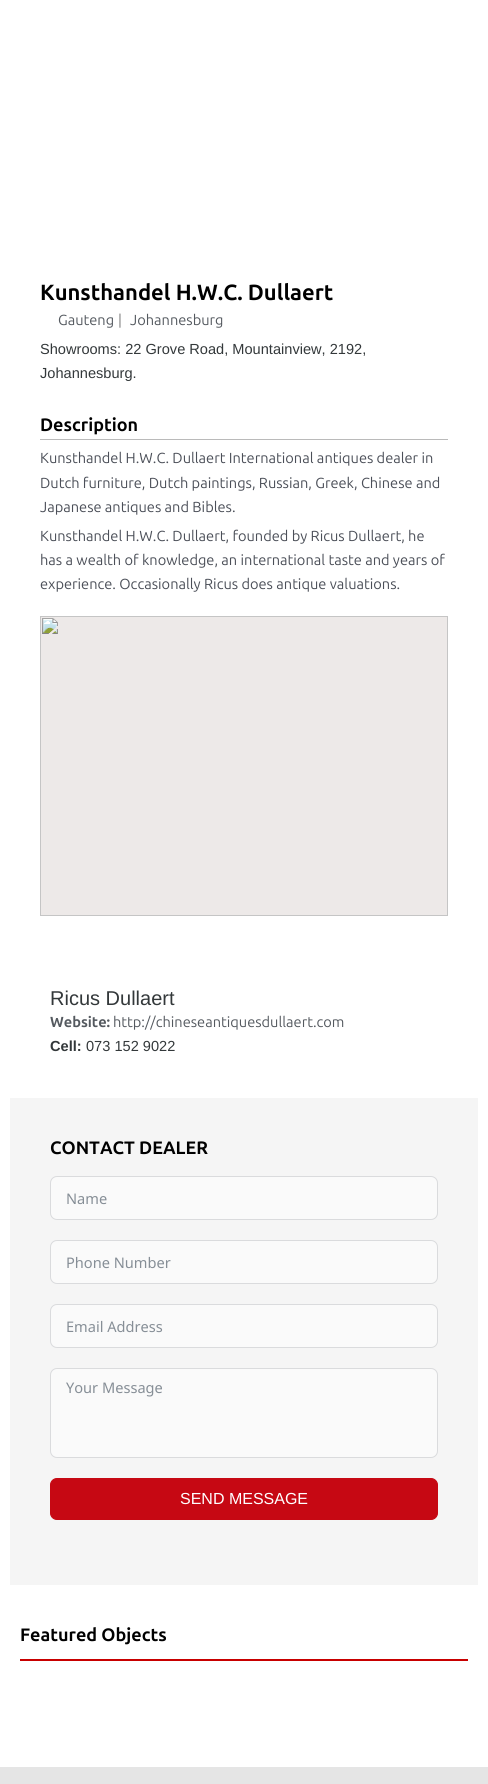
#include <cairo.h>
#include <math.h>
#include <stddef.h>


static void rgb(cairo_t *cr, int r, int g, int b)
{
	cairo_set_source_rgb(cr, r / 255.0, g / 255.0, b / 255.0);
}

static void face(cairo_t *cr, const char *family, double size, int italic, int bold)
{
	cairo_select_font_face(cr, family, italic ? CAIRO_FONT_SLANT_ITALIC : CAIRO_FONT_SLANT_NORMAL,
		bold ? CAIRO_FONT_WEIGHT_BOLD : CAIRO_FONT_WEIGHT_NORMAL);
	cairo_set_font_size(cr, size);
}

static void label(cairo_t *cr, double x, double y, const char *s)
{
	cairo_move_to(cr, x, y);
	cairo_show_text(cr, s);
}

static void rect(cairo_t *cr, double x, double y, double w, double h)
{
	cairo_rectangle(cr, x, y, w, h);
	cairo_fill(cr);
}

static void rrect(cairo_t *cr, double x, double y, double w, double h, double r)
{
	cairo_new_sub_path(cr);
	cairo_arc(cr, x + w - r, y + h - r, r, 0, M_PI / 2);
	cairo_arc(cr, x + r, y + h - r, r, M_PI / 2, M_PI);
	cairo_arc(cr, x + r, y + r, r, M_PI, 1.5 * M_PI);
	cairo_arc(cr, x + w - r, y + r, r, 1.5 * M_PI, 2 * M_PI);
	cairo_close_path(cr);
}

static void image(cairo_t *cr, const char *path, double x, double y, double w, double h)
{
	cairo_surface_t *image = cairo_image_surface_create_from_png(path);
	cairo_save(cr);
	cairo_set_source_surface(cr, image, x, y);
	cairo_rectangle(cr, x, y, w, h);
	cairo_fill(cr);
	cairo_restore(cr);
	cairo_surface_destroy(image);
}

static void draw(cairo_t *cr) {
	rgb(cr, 255, 255, 255);
	cairo_paint(cr);
	face(cr, "Ubuntu", 22, 0, 1);
	rgb(cr, 0, 0, 0);
	label(cr, 40, 300, "Kunsthandel H.W.C. Dullaert");
	face(cr, "Ubuntu", 14.6, 0, 0);
	rgb(cr, 84, 89, 95);
	label(cr, 58, 325, "Gauteng");
	rgb(cr, 122, 122, 122);
	label(cr, 118, 325, "|");
	rgb(cr, 84, 89, 95);
	label(cr, 130, 325, "Johannesburg");
	face(cr, "Liberation Sans", 14.6, 0, 0);
	rgb(cr, 51, 56, 58);
	label(cr, 40, 354, "Showrooms: 22 Grove Road, Mountainview, 2192,");
	label(cr, 40, 378, "Johannesburg.");
	face(cr, "Ubuntu", 18, 0, 1);
	rgb(cr, 0, 0, 0);
	label(cr, 40, 431, "Description");
	rgb(cr, 186, 186, 186);
	rect(cr, 40, 439, 408, 1);
	face(cr, "Ubuntu", 14.6, 0, 0);
	rgb(cr, 75, 79, 88);
	label(cr, 40, 463, "Kunsthandel H.W.C. Dullaert International antiques dealer in");
	label(cr, 40, 488, "Dutch furniture, Dutch paintings, Russian, Greek, Chinese and");
	label(cr, 40, 512, "Japanese antiques and Bibles.");
	label(cr, 40, 541, "Kunsthandel H.W.C. Dullaert, founded by Ricus Dullaert, he");
	label(cr, 40, 565, "has a wealth of knowledge, an international taste and years of");
	label(cr, 40, 589, "experience. Occasionally Ricus does antique valuations.");
	image(cr, "image0.png", 40, 616, 408, 300);
	face(cr, "Liberation Sans", 20, 0, 0);
	rgb(cr, 51, 56, 58);
	label(cr, 50, 1005, "Ricus Dullaert");
	face(cr, "Ubuntu", 14.6, 0, 1);
	rgb(cr, 84, 89, 95);
	label(cr, 50, 1027, "Website:");
	face(cr, "Ubuntu", 14.6, 0, 0);
	label(cr, 113, 1027, "http://chineseantiquesdullaert.com");
	face(cr, "Liberation Sans", 14.6, 0, 1);
	rgb(cr, 51, 56, 58);
	label(cr, 50, 1051, "Cell:");
	face(cr, "Liberation Sans", 14.6, 0, 0);
	label(cr, 86, 1051, "073 152 9022");
	rgb(cr, 245, 245, 245);
	rect(cr, 10, 1098, 468, 487);
	face(cr, "Ubuntu", 18, 0, 1);
	rgb(cr, 0, 0, 0);
	label(cr, 50, 1154, "CONTACT DEALER");
	rgb(cr, 250, 250, 250);
	rrect(cr, 50.5, 1176.5, 387, 43, 6.5);
	cairo_fill_preserve(cr);
	rgb(cr, 218, 219, 221);
	cairo_set_line_width(cr, 1);
	cairo_stroke(cr);
	face(cr, "Noto Sans", 14.6, 0, 0);
	rgb(cr, 134, 142, 150);
	label(cr, 66, 1204, "Name");
	rgb(cr, 250, 250, 250);
	rrect(cr, 50.5, 1240.5, 387, 43, 6.5);
	cairo_fill_preserve(cr);
	rgb(cr, 218, 219, 221);
	cairo_stroke(cr);
	rgb(cr, 134, 142, 150);
	label(cr, 66, 1268, "Phone Number");
	rgb(cr, 250, 250, 250);
	rrect(cr, 50.5, 1304.5, 387, 43, 6.5);
	cairo_fill_preserve(cr);
	rgb(cr, 218, 219, 221);
	cairo_stroke(cr);
	rgb(cr, 134, 142, 150);
	label(cr, 66, 1332, "Email Address");
	rgb(cr, 250, 250, 250);
	rrect(cr, 50.5, 1368.5, 387, 89, 6.5);
	cairo_fill_preserve(cr);
	rgb(cr, 218, 219, 221);
	cairo_stroke(cr);
	rgb(cr, 134, 142, 150);
	label(cr, 66, 1393, "Your Message");
	rgb(cr, 198, 8, 19);
	rrect(cr, 50.5, 1478.5, 387, 41, 6.5);
	cairo_fill_preserve(cr);
	cairo_stroke(cr);
	face(cr, "Liberation Sans", 16, 0, 0);
	rgb(cr, 255, 255, 255);
	label(cr, 180, 1504, "SEND MESSAGE");
	face(cr, "Ubuntu", 18, 0, 1);
	rgb(cr, 0, 0, 0);
	label(cr, 20, 1641, "Featured Objects");
	rgb(cr, 200, 0, 0);
	rect(cr, 20, 1659, 448, 2);
	rgb(cr, 229, 229, 229);
	rect(cr, 0, 1767, 488, 17);
}

int main(void) {
	cairo_surface_t *surface = cairo_image_surface_create(CAIRO_FORMAT_RGB24, 488, 1784);
	cairo_t *cr = cairo_create(surface);
	cairo_font_options_t *options = cairo_font_options_create();
	cairo_font_options_set_hint_metrics(options, CAIRO_HINT_METRICS_OFF);
	cairo_font_options_set_hint_style(options, CAIRO_HINT_STYLE_NONE);
	cairo_set_font_options(cr, options);
	cairo_set_miter_limit(cr, 4);
	draw(cr);
	cairo_surface_write_to_png(surface, "render.png");
	cairo_font_options_destroy(options);
	cairo_destroy(cr);
	cairo_surface_destroy(surface);
	return 0;
}
